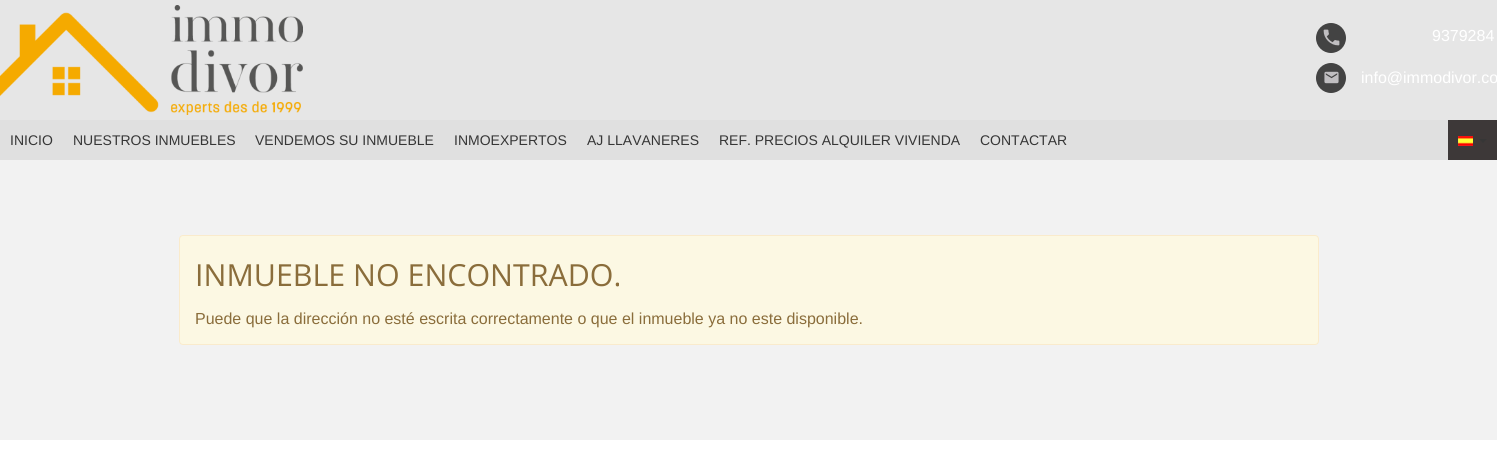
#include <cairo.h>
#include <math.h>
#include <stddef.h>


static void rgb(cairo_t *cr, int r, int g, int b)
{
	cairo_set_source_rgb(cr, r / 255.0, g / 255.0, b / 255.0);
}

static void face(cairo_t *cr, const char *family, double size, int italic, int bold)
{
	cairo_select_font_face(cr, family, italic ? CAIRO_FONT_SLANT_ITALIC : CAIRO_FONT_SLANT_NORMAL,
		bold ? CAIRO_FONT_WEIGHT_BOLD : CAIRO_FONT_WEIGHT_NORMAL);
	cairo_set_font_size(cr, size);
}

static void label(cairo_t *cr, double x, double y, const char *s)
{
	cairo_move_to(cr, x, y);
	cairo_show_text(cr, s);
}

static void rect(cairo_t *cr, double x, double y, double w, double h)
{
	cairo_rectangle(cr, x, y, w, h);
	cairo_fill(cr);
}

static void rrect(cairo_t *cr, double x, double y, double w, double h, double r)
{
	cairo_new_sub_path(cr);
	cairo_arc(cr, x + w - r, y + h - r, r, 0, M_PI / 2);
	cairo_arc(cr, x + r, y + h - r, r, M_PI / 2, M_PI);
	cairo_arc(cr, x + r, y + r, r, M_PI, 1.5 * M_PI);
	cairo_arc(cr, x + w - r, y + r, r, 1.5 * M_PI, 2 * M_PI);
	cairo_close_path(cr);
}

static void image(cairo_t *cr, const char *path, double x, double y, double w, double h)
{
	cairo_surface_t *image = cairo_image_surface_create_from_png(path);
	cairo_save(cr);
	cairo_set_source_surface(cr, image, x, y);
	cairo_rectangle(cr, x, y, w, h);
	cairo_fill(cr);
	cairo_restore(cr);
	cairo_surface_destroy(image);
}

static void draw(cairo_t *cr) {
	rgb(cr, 255, 255, 255);
	cairo_paint(cr);
	rgb(cr, 230, 230, 230);
	rect(cr, 0, 0, 1497, 120);
	image(cr, "image0.png", 0, 5, 303, 110);
	rgb(cr, 67, 67, 67);
	cairo_arc(cr, 1331, 38, 15, 0, 2 * M_PI);
	cairo_fill(cr);
	image(cr, "image1.png", 1323, 29, 17, 17);
	face(cr, "Liberation Sans", 16, 0, 0);
	rgb(cr, 255, 255, 255);
	label(cr, 1432, 41, "9379284");
	rgb(cr, 67, 67, 67);
	cairo_new_path(cr);
	cairo_arc(cr, 1331, 78, 15, 0, 2 * M_PI);
	cairo_fill(cr);
	image(cr, "image2.png", 1324, 71, 15, 13);
	rgb(cr, 255, 255, 255);
	label(cr, 1361, 83, "info@immodivor.co");
	rgb(cr, 224, 224, 224);
	rect(cr, 0, 120, 1448, 40);
	face(cr, "Liberation Sans", 14, 0, 0);
	rgb(cr, 54, 54, 54);
	label(cr, 10, 145, "INICIO");
	label(cr, 73, 145, "NUESTROS INMUEBLES");
	label(cr, 255, 145, "VENDEMOS SU INMUEBLE");
	label(cr, 454, 145, "INMOEXPERTOS");
	label(cr, 587, 145, "AJ LLAVANERES");
	label(cr, 719, 145, "REF. PRECIOS ALQUILER VIVIENDA");
	label(cr, 980, 145, "CONTACTAR");
	rgb(cr, 61, 56, 56);
	rect(cr, 1448, 120, 49, 40);
	image(cr, "image3.png", 1458, 136, 15, 10);
	rgb(cr, 54, 54, 54);
	cairo_new_path(cr);
	cairo_move_to(cr, 1479, 139);
	cairo_line_to(cr, 1487, 139);
	cairo_line_to(cr, 1483, 143);
	cairo_close_path(cr);
	cairo_fill(cr);
	rgb(cr, 242, 242, 242);
	rect(cr, 0, 160, 1497, 280);
	rgb(cr, 252, 248, 227);
	rrect(cr, 179.5, 235.5, 1139, 109, 3.5);
	cairo_fill_preserve(cr);
	rgb(cr, 250, 235, 204);
	cairo_set_line_width(cr, 1);
	cairo_stroke(cr);
	face(cr, "Open Sans", 30.4, 0, 0);
	rgb(cr, 138, 109, 59);
	label(cr, 195, 286, "INMUEBLE NO ENCONTRADO.");
	face(cr, "Liberation Sans", 16, 0, 0);
	label(cr, 195, 324, "Puede que la dirección no esté escrita correctamente o que el inmueble ya no este disponible.");
}

int main(void) {
	cairo_surface_t *surface = cairo_image_surface_create(CAIRO_FORMAT_RGB24, 1497, 453);
	cairo_t *cr = cairo_create(surface);
	cairo_font_options_t *options = cairo_font_options_create();
	cairo_font_options_set_hint_metrics(options, CAIRO_HINT_METRICS_OFF);
	cairo_font_options_set_hint_style(options, CAIRO_HINT_STYLE_NONE);
	cairo_set_font_options(cr, options);
	cairo_set_miter_limit(cr, 4);
	draw(cr);
	cairo_surface_write_to_png(surface, "render.png");
	cairo_font_options_destroy(options);
	cairo_destroy(cr);
	cairo_surface_destroy(surface);
	return 0;
}
